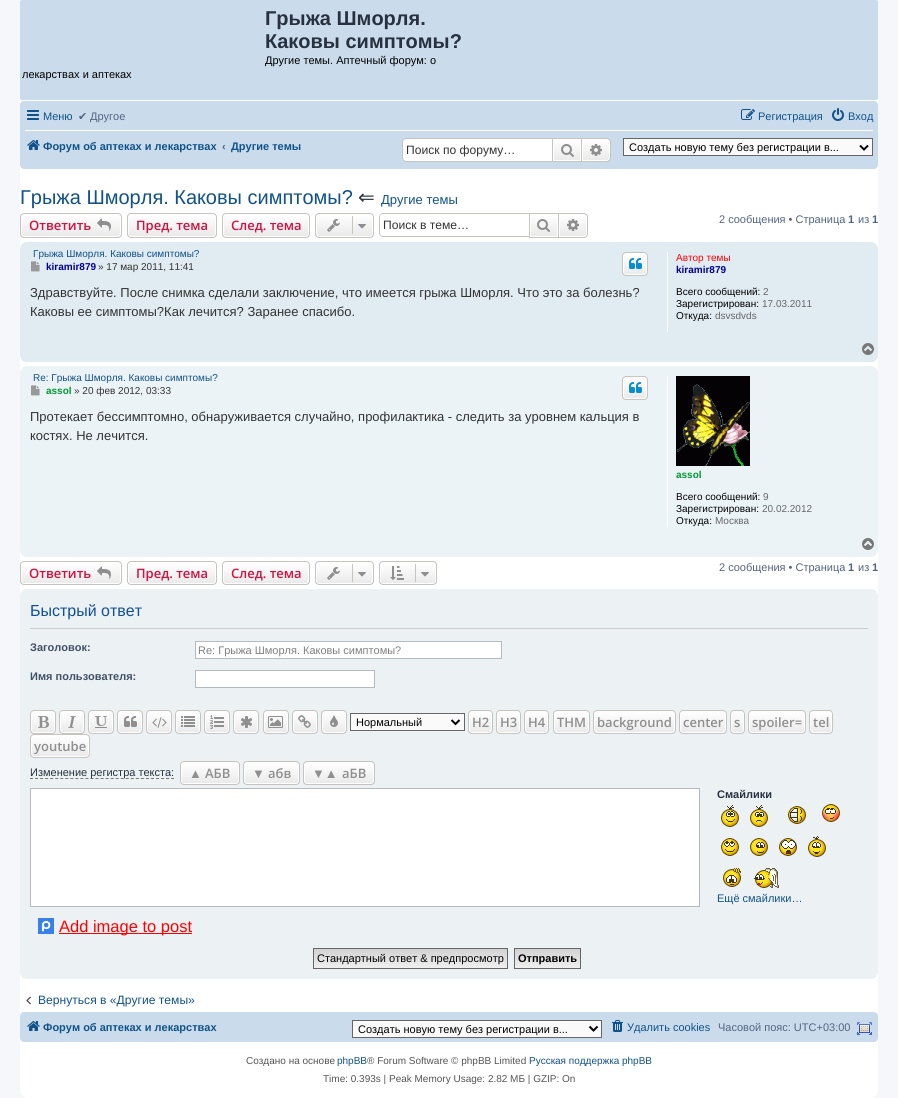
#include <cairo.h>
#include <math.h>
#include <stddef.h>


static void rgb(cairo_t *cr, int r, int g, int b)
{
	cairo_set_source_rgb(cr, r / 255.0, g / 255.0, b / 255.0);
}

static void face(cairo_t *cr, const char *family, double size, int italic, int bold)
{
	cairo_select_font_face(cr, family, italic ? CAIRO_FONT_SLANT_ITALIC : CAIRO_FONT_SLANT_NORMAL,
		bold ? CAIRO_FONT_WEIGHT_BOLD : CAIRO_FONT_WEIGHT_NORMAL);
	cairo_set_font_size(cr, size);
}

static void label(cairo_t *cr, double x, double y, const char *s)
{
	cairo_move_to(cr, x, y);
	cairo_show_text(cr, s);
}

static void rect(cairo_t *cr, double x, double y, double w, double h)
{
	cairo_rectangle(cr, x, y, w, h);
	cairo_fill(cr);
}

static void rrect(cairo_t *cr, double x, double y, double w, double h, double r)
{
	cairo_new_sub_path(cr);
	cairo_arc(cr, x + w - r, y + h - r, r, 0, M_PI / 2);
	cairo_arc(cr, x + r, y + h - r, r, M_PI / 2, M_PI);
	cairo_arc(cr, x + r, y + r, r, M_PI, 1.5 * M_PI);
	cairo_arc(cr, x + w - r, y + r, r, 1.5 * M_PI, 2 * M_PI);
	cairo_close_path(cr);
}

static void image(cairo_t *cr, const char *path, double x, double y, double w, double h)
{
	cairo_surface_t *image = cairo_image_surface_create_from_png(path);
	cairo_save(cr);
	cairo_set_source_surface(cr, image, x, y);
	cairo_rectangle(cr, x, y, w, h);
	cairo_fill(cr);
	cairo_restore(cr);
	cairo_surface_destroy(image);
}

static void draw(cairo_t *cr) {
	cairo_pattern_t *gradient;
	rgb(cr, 245, 247, 250);
	cairo_paint(cr);
	rgb(cr, 255, 255, 255);
	rrect(cr, 20, 0, 858, 1098, 8);
	cairo_fill(cr);
	rgb(cr, 202, 220, 235);
	rrect(cr, 20, 0, 858, 100, 2);
	cairo_fill(cr);
	face(cr, "Liberation Sans", 20, 0, 1);
	rgb(cr, 40, 49, 63);
	label(cr, 265, 25, "Грыжа Шморля.");
	label(cr, 265, 48, "Каковы симптомы?");
	face(cr, "Liberation Sans", 11, 0, 0);
	rgb(cr, 0, 0, 0);
	label(cr, 265, 64, "Другие темы. Аптечный форум: о");
	label(cr, 22, 78, "лекарствах и аптеках");
	rgb(cr, 202, 220, 235);
	rrect(cr, 20, 101, 858, 68, 4);
	cairo_fill(cr);
	image(cr, "image0.png", 27, 110, 12, 10);
	rgb(cr, 16, 82, 137);
	label(cr, 43, 120, "Меню");
	face(cr, "DejaVu Sans", 11, 0, 0);
	rgb(cr, 83, 100, 130);
	label(cr, 78, 120, "✔");
	face(cr, "Liberation Sans", 11, 0, 0);
	label(cr, 90, 120, "Другое");
	image(cr, "image1.png", 741, 109, 14, 11);
	rgb(cr, 16, 82, 137);
	label(cr, 758, 120, "Регистрация");
	image(cr, "image2.png", 832, 108, 12, 13);
	label(cr, 848, 120, "Вход");
	rgb(cr, 255, 255, 255);
	rect(cr, 25, 130, 848, 1);
	image(cr, "image3.png", 27, 140, 13, 10);
	face(cr, "Liberation Sans", 11, 0, 1);
	rgb(cr, 16, 82, 137);
	label(cr, 43, 150, "Форум об аптеках и лекарствах");
	rgb(cr, 83, 100, 130);
	label(cr, 222, 150, "‹");
	rgb(cr, 16, 82, 137);
	label(cr, 231, 150, "Другие темы");
	rgb(cr, 255, 255, 255);
	cairo_new_path(cr);
	cairo_move_to(cr, 406, 139);
	cairo_line_to(cr, 552, 139);
	cairo_line_to(cr, 552, 161);
	cairo_line_to(cr, 406, 161);
	cairo_curve_to(cr, 404.5, 161, 403, 159.5, 403, 158);
	cairo_line_to(cr, 403, 142);
	cairo_curve_to(cr, 403, 140.5, 404.5, 139, 406, 139);
	cairo_close_path(cr);
	cairo_fill(cr);
	rgb(cr, 199, 195, 191);
	cairo_set_fill_rule(cr, CAIRO_FILL_RULE_EVEN_ODD);
	cairo_new_path(cr);
	cairo_move_to(cr, 406, 138);
	cairo_line_to(cr, 552, 138);
	cairo_line_to(cr, 552, 162);
	cairo_line_to(cr, 406, 162);
	cairo_curve_to(cr, 404, 162, 402, 160, 402, 158);
	cairo_line_to(cr, 402, 142);
	cairo_curve_to(cr, 402, 140, 404, 138, 406, 138);
	cairo_close_path(cr);
	cairo_move_to(cr, 406, 139);
	cairo_line_to(cr, 552, 139);
	cairo_line_to(cr, 552, 161);
	cairo_line_to(cr, 406, 161);
	cairo_curve_to(cr, 404, 161, 403, 160, 403, 158);
	cairo_line_to(cr, 403, 142);
	cairo_curve_to(cr, 403, 140, 404, 139, 406, 139);
	cairo_close_path(cr);
	cairo_fill(cr);
	face(cr, "Liberation Sans", 12.1, 0, 0);
	rgb(cr, 51, 51, 51);
	label(cr, 406, 154, "Поиск по форуму…");
	gradient = cairo_pattern_create_linear(567, 139, 567, 161);
	cairo_pattern_add_color_stop_rgba(gradient, 0, 1, 1, 1, 1);
	cairo_pattern_add_color_stop_rgba(gradient, 1, 0.914, 0.914, 0.914, 1);
	cairo_set_source(cr, gradient);
	cairo_pattern_destroy(gradient);
	rect(cr, 554, 140, 26, 20);
	cairo_rectangle(cr, 553.5, 139.5, 27, 21);
	rgb(cr, 255, 255, 255);
	cairo_set_line_width(cr, 1);
	cairo_stroke(cr);
	cairo_rectangle(cr, 552.5, 138.5, 29, 23);
	rgb(cr, 199, 195, 191);
	cairo_stroke(cr);
	image(cr, "image4.png", 561, 144, 13, 13);
	gradient = cairo_pattern_create_linear(596, 139, 596, 161);
	cairo_pattern_add_color_stop_rgba(gradient, 0, 1, 1, 1, 1);
	cairo_pattern_add_color_stop_rgba(gradient, 1, 0.914, 0.914, 0.914, 1);
	cairo_set_source(cr, gradient);
	cairo_pattern_destroy(gradient);
	cairo_new_path(cr);
	cairo_move_to(cr, 582.5, 139.5);
	cairo_line_to(cr, 607, 139.5);
	cairo_curve_to(cr, 608.5, 139.5, 609.5, 140.5, 609.5, 142);
	cairo_line_to(cr, 609.5, 158);
	cairo_curve_to(cr, 609.5, 159.5, 608.5, 160.5, 607, 160.5);
	cairo_line_to(cr, 582.5, 160.5);
	cairo_close_path(cr);
	cairo_fill_preserve(cr);
	rgb(cr, 255, 255, 255);
	cairo_stroke(cr);
	rgb(cr, 199, 195, 191);
	cairo_new_path(cr);
	cairo_move_to(cr, 582, 138);
	cairo_line_to(cr, 607, 138);
	cairo_curve_to(cr, 609, 138, 611, 140, 611, 142);
	cairo_line_to(cr, 611, 158);
	cairo_curve_to(cr, 611, 160, 609, 162, 607, 162);
	cairo_line_to(cr, 582, 162);
	cairo_close_path(cr);
	cairo_move_to(cr, 582, 139);
	cairo_line_to(cr, 607, 139);
	cairo_curve_to(cr, 608.5, 139, 610, 140.5, 610, 142);
	cairo_line_to(cr, 610, 158);
	cairo_curve_to(cr, 610, 159.5, 608.5, 161, 607, 161);
	cairo_line_to(cr, 582, 161);
	cairo_close_path(cr);
	cairo_fill(cr);
	image(cr, "image5.png", 590, 144, 12, 12);
	rgb(cr, 250, 250, 250);
	cairo_rectangle(cr, 623.5, 138.5, 249, 17);
	cairo_fill_preserve(cr);
	rgb(cr, 102, 102, 102);
	cairo_stroke(cr);
	cairo_new_path(cr);
	cairo_move_to(cr, 860, 145.5);
	cairo_line_to(cr, 864, 149.5);
	cairo_line_to(cr, 868, 145.5);
	rgb(cr, 0, 0, 0);
	cairo_set_line_width(cr, 2);
	cairo_stroke(cr);
	face(cr, "Liberation Sans", 11, 0, 0);
	label(cr, 629, 151, "Создать новую тему без регистрации в...");
	face(cr, "Liberation Sans", 20, 0, 0);
	rgb(cr, 16, 82, 137);
	label(cr, 20, 204, "Грыжа Шморля. Каковы симптомы?");
	face(cr, "DejaVu Sans", 20, 0, 0);
	rgb(cr, 40, 49, 63);
	label(cr, 358, 204, "⇐");
	face(cr, "Liberation Sans", 13, 0, 0);
	rgb(cr, 16, 82, 137);
	label(cr, 381, 204, "Другие темы");
	cairo_save(cr);
	cairo_set_fill_rule(cr, CAIRO_FILL_RULE_WINDING);
	rrect(cr, 20, 213, 102, 25, 4);
	cairo_clip(cr);
	gradient = cairo_pattern_create_linear(71, 214, 71, 237);
	cairo_pattern_add_color_stop_rgba(gradient, 0, 1, 1, 1, 1);
	cairo_pattern_add_color_stop_rgba(gradient, 1, 0.914, 0.914, 0.914, 1);
	cairo_set_source(cr, gradient);
	cairo_pattern_destroy(gradient);
	rect(cr, 20, 214, 102, 23);
	cairo_restore(cr);
	rrect(cr, 21.5, 214.5, 99, 22, 2.5);
	rgb(cr, 255, 255, 255);
	cairo_set_line_width(cr, 1);
	cairo_stroke(cr);
	rrect(cr, 20.5, 213.5, 101, 24, 3.5);
	rgb(cr, 199, 195, 191);
	cairo_stroke(cr);
	face(cr, "Open Sans SemiBold", 13, 0, 0);
	rgb(cr, 211, 17, 65);
	label(cr, 29, 230, "Ответить");
	image(cr, "image6.png", 97, 218, 14, 13);
	cairo_save(cr);
	cairo_set_fill_rule(cr, CAIRO_FILL_RULE_WINDING);
	rrect(cr, 127, 213, 90, 25, 4);
	cairo_clip(cr);
	gradient = cairo_pattern_create_linear(172, 214, 172, 237);
	cairo_pattern_add_color_stop_rgba(gradient, 0, 1, 1, 1, 1);
	cairo_pattern_add_color_stop_rgba(gradient, 1, 0.914, 0.914, 0.914, 1);
	cairo_set_source(cr, gradient);
	cairo_pattern_destroy(gradient);
	rect(cr, 127, 214, 90, 23);
	cairo_restore(cr);
	rrect(cr, 128.5, 214.5, 87, 22, 2.5);
	rgb(cr, 255, 255, 255);
	cairo_stroke(cr);
	rrect(cr, 127.5, 213.5, 89, 24, 3.5);
	rgb(cr, 199, 195, 191);
	cairo_stroke(cr);
	rgb(cr, 211, 17, 65);
	label(cr, 136, 230, "Пред. тема");
	cairo_save(cr);
	cairo_set_fill_rule(cr, CAIRO_FILL_RULE_WINDING);
	rrect(cr, 222, 213, 88, 25, 4);
	cairo_clip(cr);
	gradient = cairo_pattern_create_linear(266, 214, 266, 237);
	cairo_pattern_add_color_stop_rgba(gradient, 0, 1, 1, 1, 1);
	cairo_pattern_add_color_stop_rgba(gradient, 1, 0.914, 0.914, 0.914, 1);
	cairo_set_source(cr, gradient);
	cairo_pattern_destroy(gradient);
	rect(cr, 222, 214, 88, 23);
	cairo_restore(cr);
	rrect(cr, 223.5, 214.5, 85, 22, 2.5);
	rgb(cr, 255, 255, 255);
	cairo_stroke(cr);
	rrect(cr, 222.5, 213.5, 87, 24, 3.5);
	rgb(cr, 199, 195, 191);
	cairo_stroke(cr);
	rgb(cr, 211, 17, 65);
	label(cr, 231, 230, "След. тема");
	cairo_save(cr);
	cairo_set_fill_rule(cr, CAIRO_FILL_RULE_WINDING);
	rrect(cr, 315, 213, 59, 25, 4);
	cairo_clip(cr);
	gradient = cairo_pattern_create_linear(345, 214, 345, 237);
	cairo_pattern_add_color_stop_rgba(gradient, 0, 1, 1, 1, 1);
	cairo_pattern_add_color_stop_rgba(gradient, 1, 0.914, 0.914, 0.914, 1);
	cairo_set_source(cr, gradient);
	cairo_pattern_destroy(gradient);
	rect(cr, 315, 214, 59, 23);
	cairo_restore(cr);
	rrect(cr, 316.5, 214.5, 56, 22, 2.5);
	rgb(cr, 255, 255, 255);
	cairo_stroke(cr);
	rrect(cr, 315.5, 213.5, 58, 24, 3.5);
	rgb(cr, 199, 195, 191);
	cairo_stroke(cr);
	image(cr, "image7.png", 327, 219, 13, 13);
	rect(cr, 352, 216, 1, 18);
	image(cr, "image8.png", 358, 224, 8, 5);
	cairo_new_path(cr);
	cairo_move_to(cr, 383, 213);
	cairo_line_to(cr, 529, 213);
	cairo_line_to(cr, 529, 237);
	cairo_line_to(cr, 383, 237);
	cairo_curve_to(cr, 381, 237, 379, 235, 379, 233);
	cairo_line_to(cr, 379, 217);
	cairo_curve_to(cr, 379, 215, 381, 213, 383, 213);
	cairo_close_path(cr);
	cairo_move_to(cr, 383, 214);
	cairo_line_to(cr, 529, 214);
	cairo_line_to(cr, 529, 236);
	cairo_line_to(cr, 383, 236);
	cairo_curve_to(cr, 381, 236, 380, 235, 380, 233);
	cairo_line_to(cr, 380, 217);
	cairo_curve_to(cr, 380, 215, 381, 214, 383, 214);
	cairo_close_path(cr);
	cairo_fill(cr);
	face(cr, "Liberation Sans", 12.1, 0, 0);
	rgb(cr, 51, 51, 51);
	label(cr, 383, 229, "Поиск в теме…");
	gradient = cairo_pattern_create_linear(544, 214, 544, 237);
	cairo_pattern_add_color_stop_rgba(gradient, 0, 1, 1, 1, 1);
	cairo_pattern_add_color_stop_rgba(gradient, 1, 0.914, 0.914, 0.914, 1);
	cairo_set_source(cr, gradient);
	cairo_pattern_destroy(gradient);
	rect(cr, 531, 217, 26, 19);
	cairo_rectangle(cr, 529.5, 213.5, 29, 24);
	rgb(cr, 199, 195, 191);
	cairo_stroke(cr);
	image(cr, "image4.png", 537, 219, 13, 13);
	gradient = cairo_pattern_create_linear(573, 214, 573, 237);
	cairo_pattern_add_color_stop_rgba(gradient, 0, 1, 1, 1, 1);
	cairo_pattern_add_color_stop_rgba(gradient, 1, 0.914, 0.914, 0.914, 1);
	cairo_set_source(cr, gradient);
	cairo_pattern_destroy(gradient);
	cairo_new_path(cr);
	cairo_move_to(cr, 559.5, 214.5);
	cairo_line_to(cr, 584, 214.5);
	cairo_curve_to(cr, 585.5, 214.5, 586.5, 215.5, 586.5, 217);
	cairo_line_to(cr, 586.5, 234);
	cairo_curve_to(cr, 586.5, 235.5, 585.5, 236.5, 584, 236.5);
	cairo_line_to(cr, 559.5, 236.5);
	cairo_close_path(cr);
	cairo_fill_preserve(cr);
	rgb(cr, 255, 255, 255);
	cairo_stroke(cr);
	rgb(cr, 199, 195, 191);
	cairo_new_path(cr);
	cairo_move_to(cr, 559, 213);
	cairo_line_to(cr, 584, 213);
	cairo_curve_to(cr, 586, 213, 588, 215, 588, 217);
	cairo_line_to(cr, 588, 234);
	cairo_curve_to(cr, 588, 236, 586, 238, 584, 238);
	cairo_line_to(cr, 559, 238);
	cairo_close_path(cr);
	cairo_move_to(cr, 559, 214);
	cairo_line_to(cr, 584, 214);
	cairo_curve_to(cr, 585.5, 214, 587, 215.5, 587, 217);
	cairo_line_to(cr, 587, 234);
	cairo_curve_to(cr, 587, 235.5, 585.5, 237, 584, 237);
	cairo_line_to(cr, 559, 237);
	cairo_close_path(cr);
	cairo_fill(cr);
	image(cr, "image5.png", 567, 219, 12, 12);
	face(cr, "Liberation Sans", 11, 0, 0);
	rgb(cr, 83, 100, 130);
	label(cr, 719, 223, "2 сообщения • Страница");
	face(cr, "Liberation Sans", 11, 0, 1);
	label(cr, 848, 223, "1");
	face(cr, "Liberation Sans", 11, 0, 0);
	label(cr, 858, 223, "из");
	face(cr, "Liberation Sans", 11, 0, 1);
	label(cr, 872, 223, "1");
	rgb(cr, 225, 235, 242);
	rrect(cr, 20, 242, 858, 120, 7);
	cairo_fill(cr);
	face(cr, "Liberation Sans", 10, 0, 0);
	rgb(cr, 16, 82, 137);
	label(cr, 33, 257, "Грыжа Шморля. Каковы симптомы?");
	cairo_save(cr);
	cairo_set_fill_rule(cr, CAIRO_FILL_RULE_WINDING);
	rrect(cr, 622, 252, 26, 24, 4);
	cairo_clip(cr);
	gradient = cairo_pattern_create_linear(635, 253, 635, 275);
	cairo_pattern_add_color_stop_rgba(gradient, 0, 1, 1, 1, 1);
	cairo_pattern_add_color_stop_rgba(gradient, 1, 0.914, 0.914, 0.914, 1);
	cairo_set_source(cr, gradient);
	cairo_pattern_destroy(gradient);
	rect(cr, 622, 253, 26, 22);
	cairo_restore(cr);
	rrect(cr, 623.5, 253.5, 23, 21, 2.5);
	rgb(cr, 255, 255, 255);
	cairo_stroke(cr);
	rrect(cr, 622.5, 252.5, 25, 23, 3.5);
	rgb(cr, 199, 195, 191);
	cairo_stroke(cr);
	image(cr, "image9.png", 629, 258, 13, 11);
	image(cr, "image10.png", 31, 261, 9, 11);
	face(cr, "Liberation Sans", 10, 0, 1);
	rgb(cr, 0, 0, 153);
	label(cr, 46, 270, "kiramir879");
	face(cr, "Liberation Sans", 10, 0, 0);
	rgb(cr, 51, 51, 51);
	label(cr, 98, 270, "» 17 мар 2011, 11:41");
	face(cr, "Liberation Sans", 13, 0, 0);
	label(cr, 30, 297, "Здравствуйте. После снимка сделали заключение, что имеется грыжа Шморля. Что это за болезнь?");
	label(cr, 30, 316, "Каковы ее симптомы?Как лечится? Заранее спасибо.");
	rgb(cr, 255, 255, 255);
	rect(cr, 667, 252, 1, 80);
	face(cr, "Liberation Sans", 10, 0, 0);
	rgb(cr, 255, 0, 0);
	label(cr, 676, 261, "Автор темы");
	face(cr, "Liberation Sans", 10, 0, 1);
	rgb(cr, 0, 0, 153);
	label(cr, 676, 273, "kiramir879");
	face(cr, "Liberation Sans", 10, 0, 0);
	rgb(cr, 0, 0, 0);
	label(cr, 676, 295, "Всего сообщений:");
	rgb(cr, 102, 102, 102);
	label(cr, 763, 295, "2");
	rgb(cr, 0, 0, 0);
	label(cr, 676, 307, "Зарегистрирован:");
	rgb(cr, 102, 102, 102);
	label(cr, 762, 307, "17.03.2011");
	rgb(cr, 0, 0, 0);
	label(cr, 676, 319, "Откуда:");
	rgb(cr, 102, 102, 102);
	label(cr, 715, 319, "dsvsdvds");
	image(cr, "image11.png", 862, 343, 12, 12);
	rgb(cr, 236, 243, 247);
	rrect(cr, 20, 366, 858, 191, 7);
	cairo_fill(cr);
	rgb(cr, 16, 82, 137);
	label(cr, 33, 381, "Re: Грыжа Шморля. Каковы симптомы?");
	cairo_save(cr);
	cairo_set_fill_rule(cr, CAIRO_FILL_RULE_WINDING);
	rrect(cr, 622, 376, 26, 24, 4);
	cairo_clip(cr);
	gradient = cairo_pattern_create_linear(635, 377, 635, 399);
	cairo_pattern_add_color_stop_rgba(gradient, 0, 1, 1, 1, 1);
	cairo_pattern_add_color_stop_rgba(gradient, 1, 0.914, 0.914, 0.914, 1);
	cairo_set_source(cr, gradient);
	cairo_pattern_destroy(gradient);
	rect(cr, 622, 377, 26, 22);
	cairo_restore(cr);
	rrect(cr, 623.5, 377.5, 23, 21, 2.5);
	rgb(cr, 255, 255, 255);
	cairo_stroke(cr);
	rrect(cr, 622.5, 376.5, 25, 23, 3.5);
	rgb(cr, 199, 195, 191);
	cairo_stroke(cr);
	image(cr, "image9.png", 629, 382, 13, 11);
	image(cr, "image12.png", 31, 385, 9, 11);
	face(cr, "Liberation Sans", 10, 0, 1);
	rgb(cr, 0, 153, 51);
	label(cr, 46, 394, "assol");
	face(cr, "Liberation Sans", 10, 0, 0);
	rgb(cr, 51, 51, 51);
	label(cr, 74, 394, "» 20 фев 2012, 03:33");
	face(cr, "Liberation Sans", 13, 0, 0);
	label(cr, 30, 421, "Протекает бессимптомно, обнаруживается случайно, профилактика - следить за уровнем кальция в");
	label(cr, 30, 440, "костях. Не лечится.");
	rgb(cr, 255, 255, 255);
	rect(cr, 667, 376, 1, 151);
	image(cr, "image13.png", 676, 376, 74, 90);
	face(cr, "Liberation Sans", 10, 0, 1);
	rgb(cr, 0, 153, 51);
	label(cr, 676, 478, "assol");
	face(cr, "Liberation Sans", 10, 0, 0);
	rgb(cr, 0, 0, 0);
	label(cr, 676, 500, "Всего сообщений:");
	rgb(cr, 102, 102, 102);
	label(cr, 763, 500, "9");
	rgb(cr, 0, 0, 0);
	label(cr, 676, 512, "Зарегистрирован:");
	rgb(cr, 102, 102, 102);
	label(cr, 762, 512, "20.02.2012");
	rgb(cr, 0, 0, 0);
	label(cr, 676, 524, "Откуда:");
	rgb(cr, 102, 102, 102);
	label(cr, 715, 524, "Москва");
	image(cr, "image14.png", 862, 538, 12, 12);
	cairo_save(cr);
	cairo_set_fill_rule(cr, CAIRO_FILL_RULE_WINDING);
	rrect(cr, 20, 561, 102, 24, 4);
	cairo_clip(cr);
	gradient = cairo_pattern_create_linear(71, 562, 71, 584);
	cairo_pattern_add_color_stop_rgba(gradient, 0, 1, 1, 1, 1);
	cairo_pattern_add_color_stop_rgba(gradient, 1, 0.914, 0.914, 0.914, 1);
	cairo_set_source(cr, gradient);
	cairo_pattern_destroy(gradient);
	rect(cr, 20, 562, 102, 22);
	cairo_restore(cr);
	rrect(cr, 21.5, 562.5, 99, 21, 2.5);
	rgb(cr, 255, 255, 255);
	cairo_stroke(cr);
	rrect(cr, 20.5, 561.5, 101, 23, 3.5);
	rgb(cr, 199, 195, 191);
	cairo_stroke(cr);
	face(cr, "Open Sans SemiBold", 13, 0, 0);
	rgb(cr, 211, 17, 65);
	label(cr, 29, 578, "Ответить");
	image(cr, "image6.png", 97, 566, 14, 13);
	cairo_save(cr);
	cairo_set_fill_rule(cr, CAIRO_FILL_RULE_WINDING);
	rrect(cr, 127, 561, 90, 24, 4);
	cairo_clip(cr);
	gradient = cairo_pattern_create_linear(172, 562, 172, 584);
	cairo_pattern_add_color_stop_rgba(gradient, 0, 1, 1, 1, 1);
	cairo_pattern_add_color_stop_rgba(gradient, 1, 0.914, 0.914, 0.914, 1);
	cairo_set_source(cr, gradient);
	cairo_pattern_destroy(gradient);
	rect(cr, 127, 562, 90, 22);
	cairo_restore(cr);
	rrect(cr, 128.5, 562.5, 87, 21, 2.5);
	rgb(cr, 255, 255, 255);
	cairo_stroke(cr);
	rrect(cr, 127.5, 561.5, 89, 23, 3.5);
	rgb(cr, 199, 195, 191);
	cairo_stroke(cr);
	rgb(cr, 211, 17, 65);
	label(cr, 136, 578, "Пред. тема");
	cairo_save(cr);
	cairo_set_fill_rule(cr, CAIRO_FILL_RULE_WINDING);
	rrect(cr, 222, 561, 88, 24, 4);
	cairo_clip(cr);
	gradient = cairo_pattern_create_linear(266, 562, 266, 584);
	cairo_pattern_add_color_stop_rgba(gradient, 0, 1, 1, 1, 1);
	cairo_pattern_add_color_stop_rgba(gradient, 1, 0.914, 0.914, 0.914, 1);
	cairo_set_source(cr, gradient);
	cairo_pattern_destroy(gradient);
	rect(cr, 222, 562, 88, 22);
	cairo_restore(cr);
	rrect(cr, 223.5, 562.5, 85, 21, 2.5);
	rgb(cr, 255, 255, 255);
	cairo_stroke(cr);
	rrect(cr, 222.5, 561.5, 87, 23, 3.5);
	rgb(cr, 199, 195, 191);
	cairo_stroke(cr);
	rgb(cr, 211, 17, 65);
	label(cr, 231, 578, "След. тема");
	cairo_save(cr);
	cairo_set_fill_rule(cr, CAIRO_FILL_RULE_WINDING);
	rrect(cr, 315, 561, 59, 24, 4);
	cairo_clip(cr);
	gradient = cairo_pattern_create_linear(345, 562, 345, 584);
	cairo_pattern_add_color_stop_rgba(gradient, 0, 1, 1, 1, 1);
	cairo_pattern_add_color_stop_rgba(gradient, 1, 0.914, 0.914, 0.914, 1);
	cairo_set_source(cr, gradient);
	cairo_pattern_destroy(gradient);
	rect(cr, 315, 562, 59, 22);
	cairo_restore(cr);
	rrect(cr, 316.5, 562.5, 56, 21, 2.5);
	rgb(cr, 255, 255, 255);
	cairo_stroke(cr);
	rrect(cr, 315.5, 561.5, 58, 23, 3.5);
	rgb(cr, 199, 195, 191);
	cairo_stroke(cr);
	image(cr, "image7.png", 327, 567, 13, 13);
	rect(cr, 352, 564, 1, 18);
	image(cr, "image8.png", 358, 572, 8, 5);
	cairo_save(cr);
	cairo_set_fill_rule(cr, CAIRO_FILL_RULE_WINDING);
	rrect(cr, 379, 561, 58, 24, 4);
	cairo_clip(cr);
	gradient = cairo_pattern_create_linear(408, 562, 408, 584);
	cairo_pattern_add_color_stop_rgba(gradient, 0, 1, 1, 1, 1);
	cairo_pattern_add_color_stop_rgba(gradient, 1, 0.914, 0.914, 0.914, 1);
	cairo_set_source(cr, gradient);
	cairo_pattern_destroy(gradient);
	rect(cr, 379, 562, 58, 22);
	cairo_restore(cr);
	rrect(cr, 380.5, 562.5, 55, 21, 2.5);
	rgb(cr, 255, 255, 255);
	cairo_stroke(cr);
	rrect(cr, 379.5, 561.5, 57, 23, 3.5);
	rgb(cr, 199, 195, 191);
	cairo_stroke(cr);
	image(cr, "image15.png", 390, 566, 14, 14);
	rect(cr, 415, 564, 1, 18);
	image(cr, "image8.png", 421, 572, 8, 5);
	face(cr, "Liberation Sans", 11, 0, 0);
	rgb(cr, 83, 100, 130);
	label(cr, 719, 571, "2 сообщения • Страница");
	face(cr, "Liberation Sans", 11, 0, 1);
	label(cr, 848, 571, "1");
	face(cr, "Liberation Sans", 11, 0, 0);
	label(cr, 858, 571, "из");
	face(cr, "Liberation Sans", 11, 0, 1);
	label(cr, 872, 571, "1");
	rgb(cr, 236, 241, 243);
	rrect(cr, 20, 589, 858, 390, 7);
	cairo_fill(cr);
	rgb(cr, 204, 204, 204);
	rect(cr, 30, 628, 838, 1);
	face(cr, "Liberation Sans", 16, 0, 0);
	rgb(cr, 17, 80, 152);
	label(cr, 30, 616, "Быстрый ответ");
	face(cr, "Liberation Sans", 11, 0, 1);
	rgb(cr, 66, 80, 103);
	label(cr, 30, 651, "Заголовок:");
	rgb(cr, 255, 255, 255);
	cairo_rectangle(cr, 195.5, 641.5, 306, 17);
	cairo_fill_preserve(cr);
	rgb(cr, 180, 186, 192);
	cairo_stroke(cr);
	face(cr, "Liberation Sans", 11, 0, 0);
	rgb(cr, 128, 128, 128);
	label(cr, 198, 654, "Re: Грыжа Шморля. Каковы симптомы?");
	face(cr, "Liberation Sans", 11, 0, 1);
	rgb(cr, 66, 80, 103);
	label(cr, 30, 680, "Имя пользователя:");
	rgb(cr, 255, 255, 255);
	cairo_rectangle(cr, 195.5, 670.5, 179, 17);
	cairo_fill_preserve(cr);
	rgb(cr, 180, 186, 192);
	cairo_stroke(cr);
	cairo_save(cr);
	cairo_set_fill_rule(cr, CAIRO_FILL_RULE_WINDING);
	rrect(cr, 30, 710, 26, 24, 4);
	cairo_clip(cr);
	gradient = cairo_pattern_create_linear(43, 711, 43, 733);
	cairo_pattern_add_color_stop_rgba(gradient, 0, 1, 1, 1, 1);
	cairo_pattern_add_color_stop_rgba(gradient, 1, 0.914, 0.914, 0.914, 1);
	cairo_set_source(cr, gradient);
	cairo_pattern_destroy(gradient);
	rect(cr, 30, 711, 26, 22);
	cairo_restore(cr);
	rrect(cr, 31.5, 711.5, 23, 21, 2.5);
	rgb(cr, 255, 255, 255);
	cairo_stroke(cr);
	rrect(cr, 30.5, 710.5, 25, 23, 3.5);
	rgb(cr, 199, 195, 191);
	cairo_stroke(cr);
	image(cr, "image16.png", 38, 716, 11, 12);
	cairo_save(cr);
	cairo_set_fill_rule(cr, CAIRO_FILL_RULE_WINDING);
	rrect(cr, 59, 710, 26, 24, 4);
	cairo_clip(cr);
	gradient = cairo_pattern_create_linear(72, 711, 72, 733);
	cairo_pattern_add_color_stop_rgba(gradient, 0, 1, 1, 1, 1);
	cairo_pattern_add_color_stop_rgba(gradient, 1, 0.914, 0.914, 0.914, 1);
	cairo_set_source(cr, gradient);
	cairo_pattern_destroy(gradient);
	rect(cr, 59, 711, 26, 22);
	cairo_restore(cr);
	rrect(cr, 60.5, 711.5, 23, 21, 2.5);
	rgb(cr, 255, 255, 255);
	cairo_stroke(cr);
	rrect(cr, 59.5, 710.5, 25, 23, 3.5);
	rgb(cr, 199, 195, 191);
	cairo_stroke(cr);
	image(cr, "image17.png", 68, 716, 8, 12);
	cairo_save(cr);
	cairo_set_fill_rule(cr, CAIRO_FILL_RULE_WINDING);
	rrect(cr, 88, 710, 26, 24, 4);
	cairo_clip(cr);
	gradient = cairo_pattern_create_linear(101, 711, 101, 733);
	cairo_pattern_add_color_stop_rgba(gradient, 0, 1, 1, 1, 1);
	cairo_pattern_add_color_stop_rgba(gradient, 1, 0.914, 0.914, 0.914, 1);
	cairo_set_source(cr, gradient);
	cairo_pattern_destroy(gradient);
	rect(cr, 88, 711, 26, 22);
	cairo_restore(cr);
	rrect(cr, 89.5, 711.5, 23, 21, 2.5);
	rgb(cr, 255, 255, 255);
	cairo_stroke(cr);
	rrect(cr, 88.5, 710.5, 25, 23, 3.5);
	rgb(cr, 199, 195, 191);
	cairo_stroke(cr);
	image(cr, "image18.png", 95, 716, 12, 12);
	cairo_save(cr);
	cairo_set_fill_rule(cr, CAIRO_FILL_RULE_WINDING);
	rrect(cr, 117, 710, 26, 24, 4);
	cairo_clip(cr);
	gradient = cairo_pattern_create_linear(130, 711, 130, 733);
	cairo_pattern_add_color_stop_rgba(gradient, 0, 1, 1, 1, 1);
	cairo_pattern_add_color_stop_rgba(gradient, 1, 0.914, 0.914, 0.914, 1);
	cairo_set_source(cr, gradient);
	cairo_pattern_destroy(gradient);
	rect(cr, 117, 711, 26, 22);
	cairo_restore(cr);
	rrect(cr, 118.5, 711.5, 23, 21, 2.5);
	rgb(cr, 255, 255, 255);
	cairo_stroke(cr);
	rrect(cr, 117.5, 710.5, 25, 23, 3.5);
	rgb(cr, 199, 195, 191);
	cairo_stroke(cr);
	image(cr, "image19.png", 124, 716, 13, 11);
	cairo_save(cr);
	cairo_set_fill_rule(cr, CAIRO_FILL_RULE_WINDING);
	rrect(cr, 146, 710, 26, 24, 4);
	cairo_clip(cr);
	gradient = cairo_pattern_create_linear(159, 711, 159, 733);
	cairo_pattern_add_color_stop_rgba(gradient, 0, 1, 1, 1, 1);
	cairo_pattern_add_color_stop_rgba(gradient, 1, 0.914, 0.914, 0.914, 1);
	cairo_set_source(cr, gradient);
	cairo_pattern_destroy(gradient);
	rect(cr, 146, 711, 26, 22);
	cairo_restore(cr);
	rrect(cr, 147.5, 711.5, 23, 21, 2.5);
	rgb(cr, 255, 255, 255);
	cairo_stroke(cr);
	rrect(cr, 146.5, 710.5, 25, 23, 3.5);
	rgb(cr, 199, 195, 191);
	cairo_stroke(cr);
	image(cr, "image20.png", 152, 717, 15, 11);
	cairo_save(cr);
	cairo_set_fill_rule(cr, CAIRO_FILL_RULE_WINDING);
	rrect(cr, 175, 710, 26, 24, 4);
	cairo_clip(cr);
	gradient = cairo_pattern_create_linear(188, 711, 188, 733);
	cairo_pattern_add_color_stop_rgba(gradient, 0, 1, 1, 1, 1);
	cairo_pattern_add_color_stop_rgba(gradient, 1, 0.914, 0.914, 0.914, 1);
	cairo_set_source(cr, gradient);
	cairo_pattern_destroy(gradient);
	rect(cr, 175, 711, 26, 22);
	cairo_restore(cr);
	rrect(cr, 176.5, 711.5, 23, 21, 2.5);
	rgb(cr, 255, 255, 255);
	cairo_stroke(cr);
	rrect(cr, 175.5, 710.5, 25, 23, 3.5);
	rgb(cr, 199, 195, 191);
	cairo_stroke(cr);
	image(cr, "image21.png", 181, 716, 14, 11);
	cairo_save(cr);
	cairo_set_fill_rule(cr, CAIRO_FILL_RULE_WINDING);
	rrect(cr, 204, 710, 26, 24, 4);
	cairo_clip(cr);
	gradient = cairo_pattern_create_linear(217, 711, 217, 733);
	cairo_pattern_add_color_stop_rgba(gradient, 0, 1, 1, 1, 1);
	cairo_pattern_add_color_stop_rgba(gradient, 1, 0.914, 0.914, 0.914, 1);
	cairo_set_source(cr, gradient);
	cairo_pattern_destroy(gradient);
	rect(cr, 204, 711, 26, 22);
	cairo_restore(cr);
	rrect(cr, 205.5, 711.5, 23, 21, 2.5);
	rgb(cr, 255, 255, 255);
	cairo_stroke(cr);
	rrect(cr, 204.5, 710.5, 25, 23, 3.5);
	rgb(cr, 199, 195, 191);
	cairo_stroke(cr);
	image(cr, "image22.png", 210, 715, 14, 14);
	cairo_save(cr);
	cairo_set_fill_rule(cr, CAIRO_FILL_RULE_WINDING);
	rrect(cr, 233, 710, 26, 24, 4);
	cairo_clip(cr);
	gradient = cairo_pattern_create_linear(246, 711, 246, 733);
	cairo_pattern_add_color_stop_rgba(gradient, 0, 1, 1, 1, 1);
	cairo_pattern_add_color_stop_rgba(gradient, 1, 0.914, 0.914, 0.914, 1);
	cairo_set_source(cr, gradient);
	cairo_pattern_destroy(gradient);
	rect(cr, 233, 711, 26, 22);
	cairo_restore(cr);
	rrect(cr, 234.5, 711.5, 23, 21, 2.5);
	rgb(cr, 255, 255, 255);
	cairo_stroke(cr);
	rrect(cr, 233.5, 710.5, 25, 23, 3.5);
	rgb(cr, 199, 195, 191);
	cairo_stroke(cr);
	image(cr, "image23.png", 241, 716, 11, 12);
	cairo_save(cr);
	cairo_set_fill_rule(cr, CAIRO_FILL_RULE_WINDING);
	rrect(cr, 263, 710, 26, 24, 4);
	cairo_clip(cr);
	gradient = cairo_pattern_create_linear(276, 711, 276, 733);
	cairo_pattern_add_color_stop_rgba(gradient, 0, 1, 1, 1, 1);
	cairo_pattern_add_color_stop_rgba(gradient, 1, 0.914, 0.914, 0.914, 1);
	cairo_set_source(cr, gradient);
	cairo_pattern_destroy(gradient);
	rect(cr, 263, 711, 26, 22);
	cairo_restore(cr);
	rrect(cr, 264.5, 711.5, 23, 21, 2.5);
	rgb(cr, 255, 255, 255);
	cairo_stroke(cr);
	rrect(cr, 263.5, 710.5, 25, 23, 3.5);
	rgb(cr, 199, 195, 191);
	cairo_stroke(cr);
	image(cr, "image24.png", 268, 716, 15, 12);
	cairo_save(cr);
	cairo_set_fill_rule(cr, CAIRO_FILL_RULE_WINDING);
	rrect(cr, 292, 710, 26, 24, 4);
	cairo_clip(cr);
	gradient = cairo_pattern_create_linear(305, 711, 305, 733);
	cairo_pattern_add_color_stop_rgba(gradient, 0, 1, 1, 1, 1);
	cairo_pattern_add_color_stop_rgba(gradient, 1, 0.914, 0.914, 0.914, 1);
	cairo_set_source(cr, gradient);
	cairo_pattern_destroy(gradient);
	rect(cr, 292, 711, 26, 22);
	cairo_restore(cr);
	rrect(cr, 293.5, 711.5, 23, 21, 2.5);
	rgb(cr, 255, 255, 255);
	cairo_stroke(cr);
	rrect(cr, 292.5, 710.5, 25, 23, 3.5);
	rgb(cr, 199, 195, 191);
	cairo_stroke(cr);
	image(cr, "image25.png", 298, 715, 13, 13);
	cairo_save(cr);
	cairo_set_fill_rule(cr, CAIRO_FILL_RULE_WINDING);
	rrect(cr, 321, 710, 26, 24, 4);
	cairo_clip(cr);
	gradient = cairo_pattern_create_linear(334, 711, 334, 733);
	cairo_pattern_add_color_stop_rgba(gradient, 0, 1, 1, 1, 1);
	cairo_pattern_add_color_stop_rgba(gradient, 1, 0.914, 0.914, 0.914, 1);
	cairo_set_source(cr, gradient);
	cairo_pattern_destroy(gradient);
	rect(cr, 321, 711, 26, 22);
	cairo_restore(cr);
	rrect(cr, 322.5, 711.5, 23, 21, 2.5);
	rgb(cr, 255, 255, 255);
	cairo_stroke(cr);
	rrect(cr, 321.5, 710.5, 25, 23, 3.5);
	rgb(cr, 199, 195, 191);
	cairo_stroke(cr);
	image(cr, "image26.png", 330, 715, 8, 12);
	rgb(cr, 250, 250, 250);
	cairo_rectangle(cr, 350.5, 713.5, 114, 17);
	cairo_fill_preserve(cr);
	rgb(cr, 102, 102, 102);
	cairo_stroke(cr);
	cairo_new_path(cr);
	cairo_move_to(cr, 451.5, 720);
	cairo_line_to(cr, 455.5, 724);
	cairo_line_to(cr, 459.5, 720);
	rgb(cr, 0, 0, 0);
	cairo_set_line_width(cr, 2);
	cairo_stroke(cr);
	face(cr, "Liberation Sans", 11, 0, 0);
	label(cr, 356, 726, "Нормальный");
	cairo_save(cr);
	cairo_set_fill_rule(cr, CAIRO_FILL_RULE_WINDING);
	rrect(cr, 468, 710, 25, 24, 4);
	cairo_clip(cr);
	gradient = cairo_pattern_create_linear(481, 711, 481, 733);
	cairo_pattern_add_color_stop_rgba(gradient, 0, 1, 1, 1, 1);
	cairo_pattern_add_color_stop_rgba(gradient, 1, 0.914, 0.914, 0.914, 1);
	cairo_set_source(cr, gradient);
	cairo_pattern_destroy(gradient);
	rect(cr, 468, 711, 25, 22);
	cairo_restore(cr);
	rrect(cr, 469.5, 711.5, 22, 21, 2.5);
	rgb(cr, 255, 255, 255);
	cairo_set_line_width(cr, 1);
	cairo_stroke(cr);
	rrect(cr, 468.5, 710.5, 24, 23, 3.5);
	rgb(cr, 199, 195, 191);
	cairo_stroke(cr);
	face(cr, "Open Sans SemiBold", 13, 0, 0);
	rgb(cr, 143, 143, 143);
	label(cr, 472, 727, "H2");
	cairo_save(cr);
	cairo_set_fill_rule(cr, CAIRO_FILL_RULE_WINDING);
	rrect(cr, 496, 710, 25, 24, 4);
	cairo_clip(cr);
	gradient = cairo_pattern_create_linear(509, 711, 509, 733);
	cairo_pattern_add_color_stop_rgba(gradient, 0, 1, 1, 1, 1);
	cairo_pattern_add_color_stop_rgba(gradient, 1, 0.914, 0.914, 0.914, 1);
	cairo_set_source(cr, gradient);
	cairo_pattern_destroy(gradient);
	rect(cr, 496, 711, 25, 22);
	cairo_restore(cr);
	rrect(cr, 497.5, 711.5, 22, 21, 2.5);
	rgb(cr, 255, 255, 255);
	cairo_stroke(cr);
	rrect(cr, 496.5, 710.5, 24, 23, 3.5);
	rgb(cr, 199, 195, 191);
	cairo_stroke(cr);
	rgb(cr, 143, 143, 143);
	label(cr, 500, 727, "H3");
	cairo_save(cr);
	cairo_set_fill_rule(cr, CAIRO_FILL_RULE_WINDING);
	rrect(cr, 524, 710, 25, 24, 4);
	cairo_clip(cr);
	gradient = cairo_pattern_create_linear(537, 711, 537, 733);
	cairo_pattern_add_color_stop_rgba(gradient, 0, 1, 1, 1, 1);
	cairo_pattern_add_color_stop_rgba(gradient, 1, 0.914, 0.914, 0.914, 1);
	cairo_set_source(cr, gradient);
	cairo_pattern_destroy(gradient);
	rect(cr, 524, 711, 25, 22);
	cairo_restore(cr);
	rrect(cr, 525.5, 711.5, 22, 21, 2.5);
	rgb(cr, 255, 255, 255);
	cairo_stroke(cr);
	rrect(cr, 524.5, 710.5, 24, 23, 3.5);
	rgb(cr, 199, 195, 191);
	cairo_stroke(cr);
	rgb(cr, 143, 143, 143);
	label(cr, 528, 727, "H4");
	cairo_save(cr);
	cairo_set_fill_rule(cr, CAIRO_FILL_RULE_WINDING);
	rrect(cr, 553, 710, 37, 24, 4);
	cairo_clip(cr);
	gradient = cairo_pattern_create_linear(572, 711, 572, 733);
	cairo_pattern_add_color_stop_rgba(gradient, 0, 1, 1, 1, 1);
	cairo_pattern_add_color_stop_rgba(gradient, 1, 0.914, 0.914, 0.914, 1);
	cairo_set_source(cr, gradient);
	cairo_pattern_destroy(gradient);
	rect(cr, 553, 711, 37, 22);
	cairo_restore(cr);
	rrect(cr, 554.5, 711.5, 34, 21, 2.5);
	rgb(cr, 255, 255, 255);
	cairo_stroke(cr);
	rrect(cr, 553.5, 710.5, 36, 23, 3.5);
	rgb(cr, 199, 195, 191);
	cairo_stroke(cr);
	rgb(cr, 143, 143, 143);
	label(cr, 557, 727, "THM");
	cairo_save(cr);
	cairo_set_fill_rule(cr, CAIRO_FILL_RULE_WINDING);
	rrect(cr, 593, 710, 83, 24, 4);
	cairo_clip(cr);
	gradient = cairo_pattern_create_linear(635, 711, 635, 733);
	cairo_pattern_add_color_stop_rgba(gradient, 0, 1, 1, 1, 1);
	cairo_pattern_add_color_stop_rgba(gradient, 1, 0.914, 0.914, 0.914, 1);
	cairo_set_source(cr, gradient);
	cairo_pattern_destroy(gradient);
	rect(cr, 593, 711, 83, 22);
	cairo_restore(cr);
	rrect(cr, 594.5, 711.5, 80, 21, 2.5);
	rgb(cr, 255, 255, 255);
	cairo_stroke(cr);
	rrect(cr, 593.5, 710.5, 82, 23, 3.5);
	rgb(cr, 199, 195, 191);
	cairo_stroke(cr);
	rgb(cr, 143, 143, 143);
	label(cr, 597, 727, "background");
	cairo_save(cr);
	cairo_set_fill_rule(cr, CAIRO_FILL_RULE_WINDING);
	rrect(cr, 679, 710, 48, 24, 4);
	cairo_clip(cr);
	gradient = cairo_pattern_create_linear(703, 711, 703, 733);
	cairo_pattern_add_color_stop_rgba(gradient, 0, 1, 1, 1, 1);
	cairo_pattern_add_color_stop_rgba(gradient, 1, 0.914, 0.914, 0.914, 1);
	cairo_set_source(cr, gradient);
	cairo_pattern_destroy(gradient);
	rect(cr, 679, 711, 48, 22);
	cairo_restore(cr);
	rrect(cr, 680.5, 711.5, 45, 21, 2.5);
	rgb(cr, 255, 255, 255);
	cairo_stroke(cr);
	rrect(cr, 679.5, 710.5, 47, 23, 3.5);
	rgb(cr, 199, 195, 191);
	cairo_stroke(cr);
	rgb(cr, 143, 143, 143);
	label(cr, 683, 727, "center");
	cairo_save(cr);
	cairo_set_fill_rule(cr, CAIRO_FILL_RULE_WINDING);
	rrect(cr, 730, 710, 15, 24, 4);
	cairo_clip(cr);
	gradient = cairo_pattern_create_linear(738, 711, 738, 733);
	cairo_pattern_add_color_stop_rgba(gradient, 0, 1, 1, 1, 1);
	cairo_pattern_add_color_stop_rgba(gradient, 1, 0.914, 0.914, 0.914, 1);
	cairo_set_source(cr, gradient);
	cairo_pattern_destroy(gradient);
	rect(cr, 730, 711, 15, 22);
	cairo_restore(cr);
	rrect(cr, 731.5, 711.5, 12, 21, 2.5);
	rgb(cr, 255, 255, 255);
	cairo_stroke(cr);
	rrect(cr, 730.5, 710.5, 14, 23, 3.5);
	rgb(cr, 199, 195, 191);
	cairo_stroke(cr);
	rgb(cr, 143, 143, 143);
	label(cr, 734, 727, "s");
	cairo_save(cr);
	cairo_set_fill_rule(cr, CAIRO_FILL_RULE_WINDING);
	rrect(cr, 748, 710, 58, 24, 4);
	cairo_clip(cr);
	gradient = cairo_pattern_create_linear(777, 711, 777, 733);
	cairo_pattern_add_color_stop_rgba(gradient, 0, 1, 1, 1, 1);
	cairo_pattern_add_color_stop_rgba(gradient, 1, 0.914, 0.914, 0.914, 1);
	cairo_set_source(cr, gradient);
	cairo_pattern_destroy(gradient);
	rect(cr, 748, 711, 58, 22);
	cairo_restore(cr);
	rrect(cr, 749.5, 711.5, 55, 21, 2.5);
	rgb(cr, 255, 255, 255);
	cairo_stroke(cr);
	rrect(cr, 748.5, 710.5, 57, 23, 3.5);
	rgb(cr, 199, 195, 191);
	cairo_stroke(cr);
	rgb(cr, 143, 143, 143);
	label(cr, 752, 727, "spoiler=");
	cairo_save(cr);
	cairo_set_fill_rule(cr, CAIRO_FILL_RULE_WINDING);
	rrect(cr, 809, 710, 24, 24, 4);
	cairo_clip(cr);
	gradient = cairo_pattern_create_linear(821, 711, 821, 733);
	cairo_pattern_add_color_stop_rgba(gradient, 0, 1, 1, 1, 1);
	cairo_pattern_add_color_stop_rgba(gradient, 1, 0.914, 0.914, 0.914, 1);
	cairo_set_source(cr, gradient);
	cairo_pattern_destroy(gradient);
	rect(cr, 809, 711, 24, 22);
	cairo_restore(cr);
	rrect(cr, 810.5, 711.5, 21, 21, 2.5);
	rgb(cr, 255, 255, 255);
	cairo_stroke(cr);
	rrect(cr, 809.5, 710.5, 23, 23, 3.5);
	rgb(cr, 199, 195, 191);
	cairo_stroke(cr);
	rgb(cr, 143, 143, 143);
	label(cr, 813, 727, "tel");
	cairo_save(cr);
	cairo_set_fill_rule(cr, CAIRO_FILL_RULE_WINDING);
	rrect(cr, 30, 734, 60, 24, 4);
	cairo_clip(cr);
	gradient = cairo_pattern_create_linear(60, 735, 60, 757);
	cairo_pattern_add_color_stop_rgba(gradient, 0, 1, 1, 1, 1);
	cairo_pattern_add_color_stop_rgba(gradient, 1, 0.914, 0.914, 0.914, 1);
	cairo_set_source(cr, gradient);
	cairo_pattern_destroy(gradient);
	rect(cr, 30, 735, 60, 22);
	cairo_restore(cr);
	rrect(cr, 31.5, 735.5, 57, 21, 2.5);
	rgb(cr, 255, 255, 255);
	cairo_stroke(cr);
	rrect(cr, 30.5, 734.5, 59, 23, 3.5);
	rgb(cr, 199, 195, 191);
	cairo_stroke(cr);
	rgb(cr, 143, 143, 143);
	label(cr, 34, 751, "youtube");
	cairo_new_path(cr);
	cairo_move_to(cr, 30, 778.5);
	cairo_line_to(cr, 174, 778.5);
	rgb(cr, 119, 119, 119);
	cairo_set_dash(cr, (double[]){3, 2.04}, 2, 0);
	cairo_stroke(cr);
	face(cr, "Liberation Sans", 11, 0, 0);
	rgb(cr, 40, 49, 63);
	label(cr, 30, 776, "Изменение регистра текста:");
	cairo_save(cr);
	cairo_set_fill_rule(cr, CAIRO_FILL_RULE_WINDING);
	rrect(cr, 180, 761, 60, 24, 4);
	cairo_clip(cr);
	gradient = cairo_pattern_create_linear(210, 762, 210, 784);
	cairo_pattern_add_color_stop_rgba(gradient, 0, 1, 1, 1, 1);
	cairo_pattern_add_color_stop_rgba(gradient, 1, 0.914, 0.914, 0.914, 1);
	cairo_set_source(cr, gradient);
	cairo_pattern_destroy(gradient);
	rect(cr, 180, 762, 60, 22);
	cairo_restore(cr);
	rrect(cr, 181.5, 762.5, 57, 21, 2.5);
	rgb(cr, 255, 255, 255);
	cairo_set_dash(cr, NULL, 0, 0);
	cairo_stroke(cr);
	rrect(cr, 180.5, 761.5, 59, 23, 3.5);
	rgb(cr, 199, 195, 191);
	cairo_stroke(cr);
	face(cr, "Liberation Sans", 13, 0, 1);
	rgb(cr, 143, 143, 143);
	label(cr, 189, 778, "▲");
	face(cr, "Open Sans SemiBold", 13, 0, 0);
	label(cr, 205, 778, "АБВ");
	cairo_save(cr);
	cairo_set_fill_rule(cr, CAIRO_FILL_RULE_WINDING);
	rrect(cr, 243, 761, 57, 24, 4);
	cairo_clip(cr);
	gradient = cairo_pattern_create_linear(272, 762, 272, 784);
	cairo_pattern_add_color_stop_rgba(gradient, 0, 1, 1, 1, 1);
	cairo_pattern_add_color_stop_rgba(gradient, 1, 0.914, 0.914, 0.914, 1);
	cairo_set_source(cr, gradient);
	cairo_pattern_destroy(gradient);
	rect(cr, 243, 762, 57, 22);
	cairo_restore(cr);
	rrect(cr, 244.5, 762.5, 54, 21, 2.5);
	rgb(cr, 255, 255, 255);
	cairo_stroke(cr);
	rrect(cr, 243.5, 761.5, 56, 23, 3.5);
	rgb(cr, 199, 195, 191);
	cairo_stroke(cr);
	face(cr, "Liberation Sans", 13, 0, 1);
	rgb(cr, 143, 143, 143);
	label(cr, 252, 778, "▼");
	face(cr, "Open Sans SemiBold", 13, 0, 0);
	label(cr, 268, 778, "абв");
	cairo_save(cr);
	cairo_set_fill_rule(cr, CAIRO_FILL_RULE_WINDING);
	rrect(cr, 303, 761, 72, 24, 4);
	cairo_clip(cr);
	gradient = cairo_pattern_create_linear(339, 762, 339, 784);
	cairo_pattern_add_color_stop_rgba(gradient, 0, 1, 1, 1, 1);
	cairo_pattern_add_color_stop_rgba(gradient, 1, 0.914, 0.914, 0.914, 1);
	cairo_set_source(cr, gradient);
	cairo_pattern_destroy(gradient);
	rect(cr, 303, 762, 72, 22);
	cairo_restore(cr);
	rrect(cr, 304.5, 762.5, 69, 21, 2.5);
	rgb(cr, 255, 255, 255);
	cairo_stroke(cr);
	rrect(cr, 303.5, 761.5, 71, 23, 3.5);
	rgb(cr, 199, 195, 191);
	cairo_stroke(cr);
	face(cr, "Liberation Sans", 13, 0, 1);
	rgb(cr, 143, 143, 143);
	label(cr, 312, 778, "▼▲");
	face(cr, "Open Sans SemiBold", 13, 0, 0);
	label(cr, 342, 778, "аБВ");
	face(cr, "Liberation Sans", 11, 0, 1);
	rgb(cr, 40, 49, 63);
	label(cr, 717, 798, "Смайлики");
	image(cr, "image27.png", 721, 805, 18, 22);
	image(cr, "image28.png", 750, 805, 18, 22);
	image(cr, "image29.png", 788, 806, 18, 18);
	image(cr, "image30.png", 822, 804, 18, 18);
	image(cr, "image31.png", 721, 838, 18, 18);
	image(cr, "image32.png", 750, 838, 18, 18);
	image(cr, "image33.png", 779, 838, 18, 18);
	image(cr, "image34.png", 808, 836, 18, 21);
	image(cr, "image35.png", 723, 868, 18, 19);
	image(cr, "image36.png", 754, 868, 25, 20);
	face(cr, "Liberation Sans", 11, 0, 0);
	rgb(cr, 16, 82, 137);
	label(cr, 717, 902, "Ещё смайлики…");
	rgb(cr, 255, 255, 255);
	cairo_rectangle(cr, 30.5, 788.5, 669, 118);
	cairo_fill_preserve(cr);
	rgb(cr, 180, 186, 192);
	cairo_stroke(cr);
	image(cr, "image37.png", 38, 918, 16, 16);
	rgb(cr, 255, 0, 0);
	rect(cr, 59, 933, 133, 1);
	face(cr, "Liberation Sans", 16.5, 0, 0);
	label(cr, 59, 932, "Add image to post");
	gradient = cairo_pattern_create_linear(411, 949, 411, 968);
	cairo_pattern_add_color_stop_rgba(gradient, 0, 0.824, 0.824, 0.824, 1);
	cairo_pattern_add_color_stop_rgba(gradient, 1, 0.937, 0.937, 0.937, 1);
	cairo_set_source(cr, gradient);
	cairo_pattern_destroy(gradient);
	rect(cr, 314, 949, 193, 19);
	cairo_rectangle(cr, 313.5, 948.5, 194, 20);
	rgb(cr, 102, 102, 102);
	cairo_stroke(cr);
	face(cr, "Liberation Sans", 11, 0, 0);
	rgb(cr, 0, 0, 0);
	label(cr, 317, 962, "Стандартный ответ & предпросмотр");
	gradient = cairo_pattern_create_linear(548, 949, 548, 968);
	cairo_pattern_add_color_stop_rgba(gradient, 0, 0.824, 0.824, 0.824, 1);
	cairo_pattern_add_color_stop_rgba(gradient, 1, 0.937, 0.937, 0.937, 1);
	cairo_set_source(cr, gradient);
	cairo_pattern_destroy(gradient);
	rect(cr, 515, 949, 65, 19);
	cairo_rectangle(cr, 514.5, 948.5, 66, 20);
	rgb(cr, 102, 102, 102);
	cairo_stroke(cr);
	face(cr, "Liberation Sans", 11, 0, 1);
	rgb(cr, 0, 0, 0);
	label(cr, 518, 962, "Отправить");
	image(cr, "image38.png", 26, 996, 5, 9);
	face(cr, "Liberation Sans", 12.1, 0, 0);
	rgb(cr, 16, 82, 137);
	label(cr, 38, 1004, "Вернуться в «Другие темы»");
	rgb(cr, 202, 220, 235);
	rrect(cr, 20, 1012, 858, 30, 4);
	cairo_fill(cr);
	image(cr, "image3.png", 27, 1021, 13, 10);
	face(cr, "Liberation Sans", 11, 0, 1);
	rgb(cr, 16, 82, 137);
	label(cr, 43, 1031, "Форум об аптеках и лекарствах");
	rgb(cr, 250, 250, 250);
	cairo_rectangle(cr, 352.5, 1020.5, 249, 17);
	cairo_fill_preserve(cr);
	rgb(cr, 102, 102, 102);
	cairo_stroke(cr);
	cairo_new_path(cr);
	cairo_move_to(cr, 589.5, 1026.5);
	cairo_line_to(cr, 593.5, 1030.5);
	cairo_line_to(cr, 597.5, 1026.5);
	rgb(cr, 0, 0, 0);
	cairo_set_line_width(cr, 2);
	cairo_stroke(cr);
	face(cr, "Liberation Sans", 11, 0, 0);
	label(cr, 358, 1033, "Создать новую тему без регистрации в...");
	image(cr, "image39.png", 612, 1020, 11, 12);
	rgb(cr, 16, 82, 137);
	label(cr, 627, 1031, "Удалить cookies");
	rgb(cr, 83, 100, 130);
	label(cr, 718, 1031, "Часовой пояс: UTC+03:00");
	image(cr, "image40.png", 857, 1022, 15, 13);
	face(cr, "Liberation Sans", 10, 0, 0);
	rgb(cr, 85, 85, 85);
	label(cr, 246, 1064, "Создано на основе");
	rgb(cr, 16, 82, 137);
	label(cr, 337, 1064, "phpBB");
	rgb(cr, 85, 85, 85);
	label(cr, 367, 1064, "® Forum Software © phpBB Limited");
	rgb(cr, 16, 82, 137);
	label(cr, 529, 1064, "Русская поддержка phpBB");
	rgb(cr, 85, 85, 85);
	label(cr, 323, 1082, "Time: 0.393s | Peak Memory Usage: 2.82 МБ | GZIP: On");
}

int main(void) {
	cairo_surface_t *surface = cairo_image_surface_create(CAIRO_FORMAT_RGB24, 898, 1098);
	cairo_t *cr = cairo_create(surface);
	cairo_font_options_t *options = cairo_font_options_create();
	cairo_font_options_set_hint_metrics(options, CAIRO_HINT_METRICS_OFF);
	cairo_font_options_set_hint_style(options, CAIRO_HINT_STYLE_NONE);
	cairo_set_font_options(cr, options);
	cairo_set_miter_limit(cr, 4);
	draw(cr);
	cairo_surface_write_to_png(surface, "render.png");
	cairo_font_options_destroy(options);
	cairo_destroy(cr);
	cairo_surface_destroy(surface);
	return 0;
}
